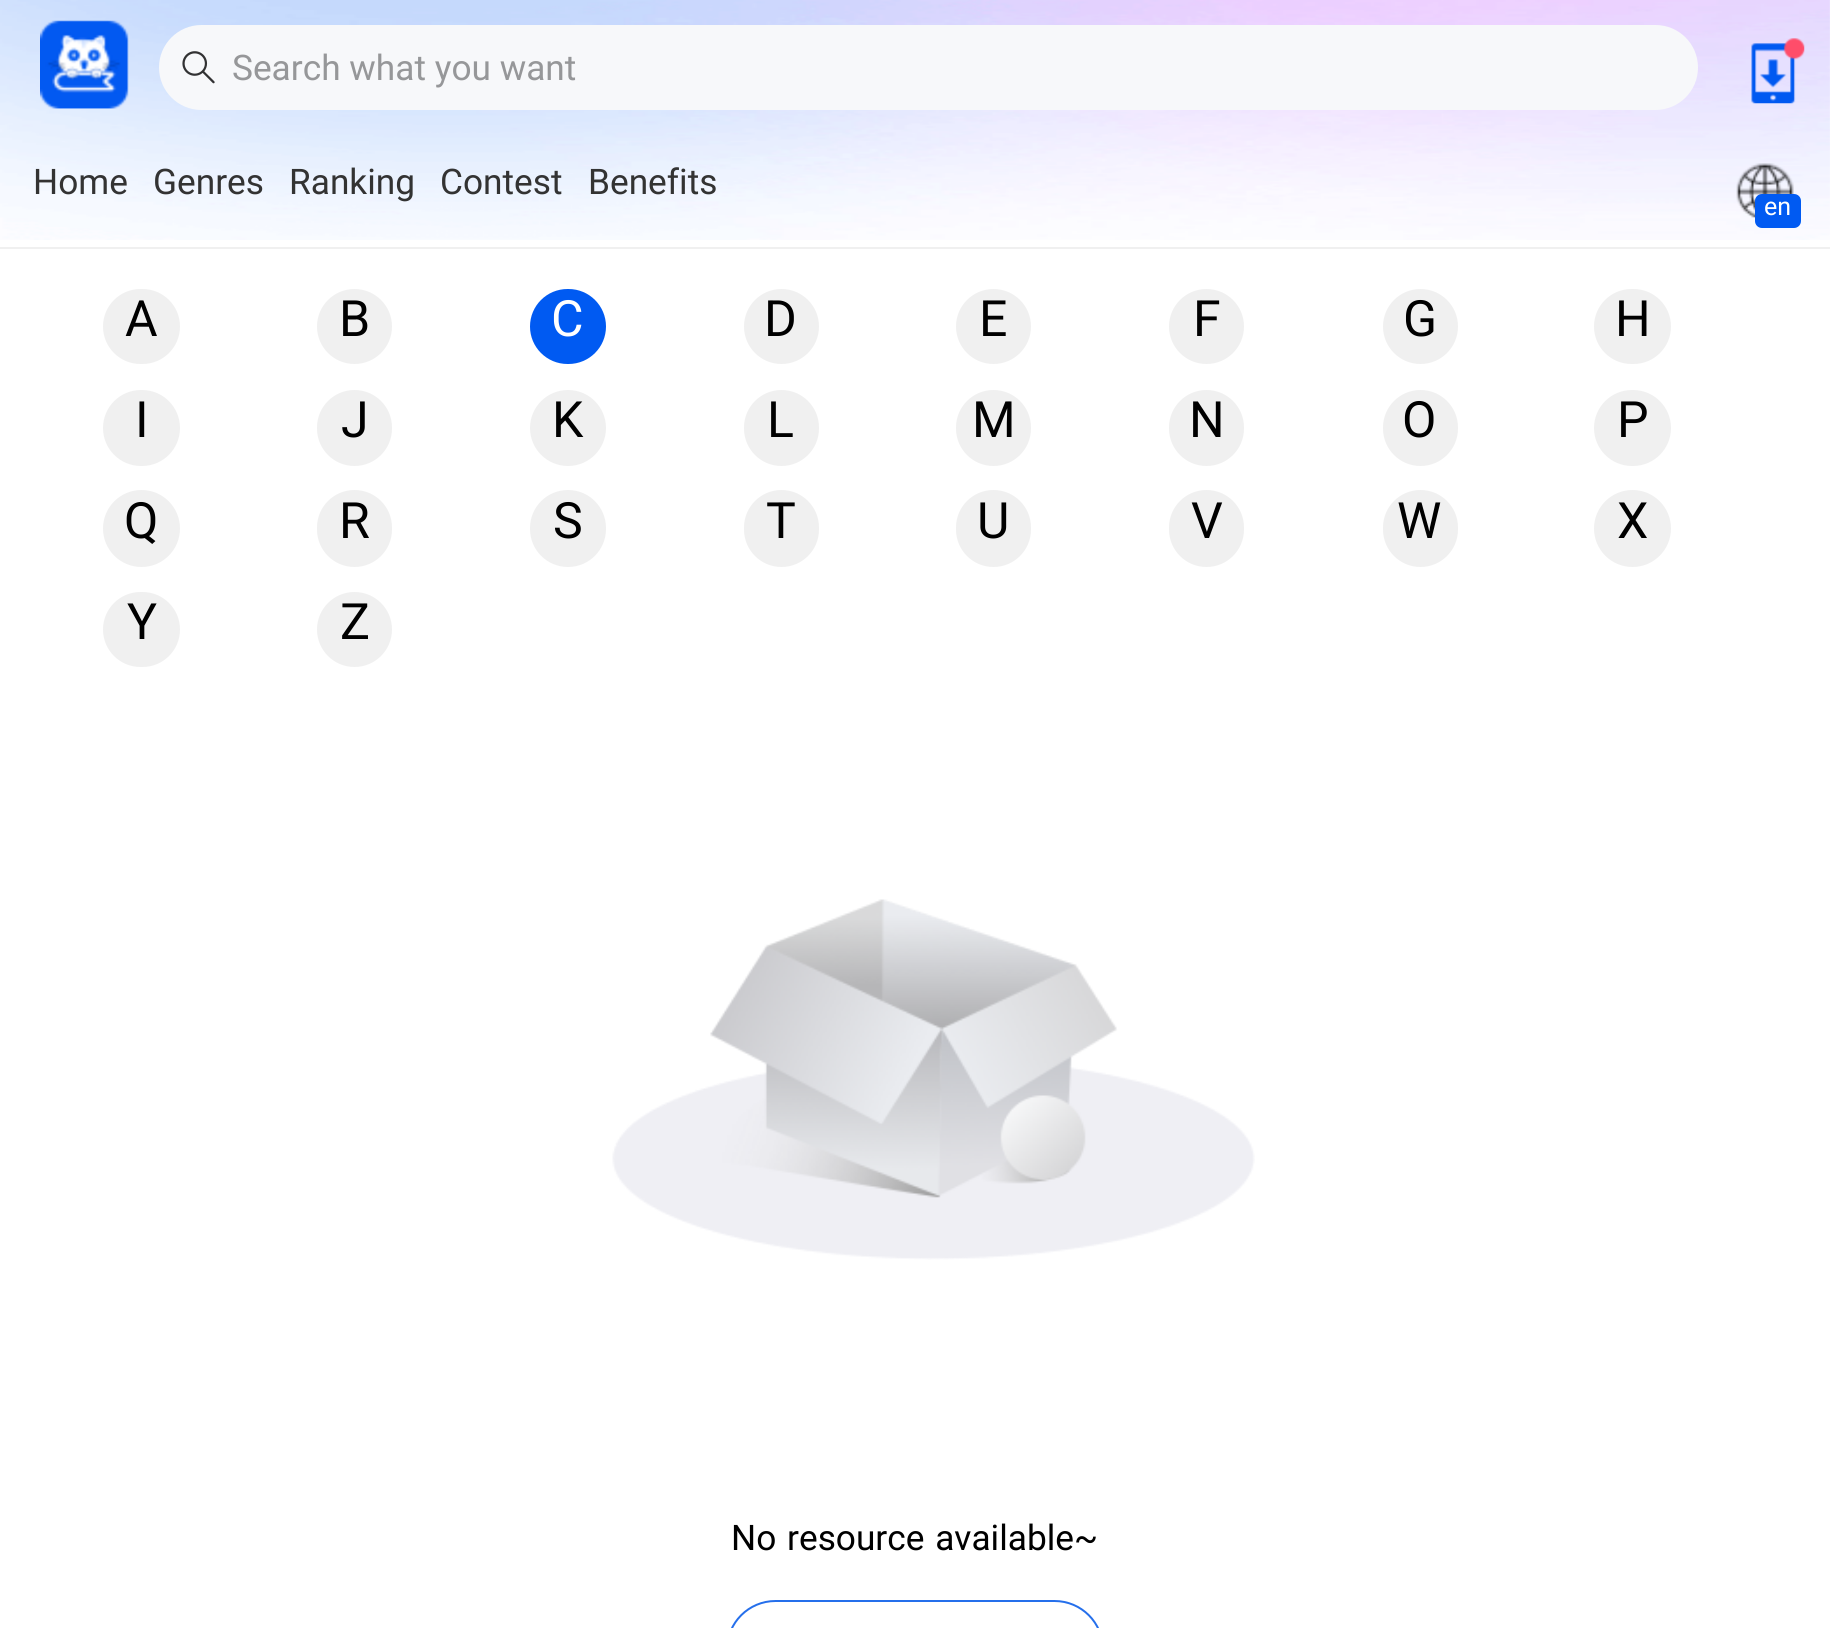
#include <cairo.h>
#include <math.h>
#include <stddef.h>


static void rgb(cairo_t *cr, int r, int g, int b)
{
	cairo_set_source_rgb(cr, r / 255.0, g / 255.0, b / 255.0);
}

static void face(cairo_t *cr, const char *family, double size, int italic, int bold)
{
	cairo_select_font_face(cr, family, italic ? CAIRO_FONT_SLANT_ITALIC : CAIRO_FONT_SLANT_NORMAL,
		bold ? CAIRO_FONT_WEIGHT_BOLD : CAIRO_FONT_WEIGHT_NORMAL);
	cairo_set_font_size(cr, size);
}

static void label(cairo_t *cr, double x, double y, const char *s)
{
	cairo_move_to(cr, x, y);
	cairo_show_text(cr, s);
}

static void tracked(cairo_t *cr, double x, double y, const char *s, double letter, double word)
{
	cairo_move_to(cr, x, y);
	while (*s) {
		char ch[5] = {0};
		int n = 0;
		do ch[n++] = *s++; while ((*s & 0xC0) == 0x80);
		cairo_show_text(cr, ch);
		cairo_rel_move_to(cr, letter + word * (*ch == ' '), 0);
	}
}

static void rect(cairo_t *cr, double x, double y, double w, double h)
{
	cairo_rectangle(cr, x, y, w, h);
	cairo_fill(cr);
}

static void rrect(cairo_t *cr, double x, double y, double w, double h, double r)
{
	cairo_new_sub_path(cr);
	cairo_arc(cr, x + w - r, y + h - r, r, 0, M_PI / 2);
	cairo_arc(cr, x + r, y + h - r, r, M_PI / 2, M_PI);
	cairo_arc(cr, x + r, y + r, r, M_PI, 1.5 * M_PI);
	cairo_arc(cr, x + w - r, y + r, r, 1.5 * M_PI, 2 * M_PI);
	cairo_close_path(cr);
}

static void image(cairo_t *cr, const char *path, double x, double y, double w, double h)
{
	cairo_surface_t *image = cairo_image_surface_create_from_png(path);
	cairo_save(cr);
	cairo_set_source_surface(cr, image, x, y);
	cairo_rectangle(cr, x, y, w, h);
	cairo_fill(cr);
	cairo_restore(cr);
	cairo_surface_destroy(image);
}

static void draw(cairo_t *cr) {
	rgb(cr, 255, 255, 255);
	cairo_paint(cr);
	image(cr, "image0.png", 0, 0, 1830, 240);
	image(cr, "image1.png", 40, 20, 89, 89);
	rgb(cr, 247, 248, 250);
	rrect(cr, 159, 25, 1539, 85, 42.5);
	cairo_fill(cr);
	image(cr, "image2.png", 182, 51, 33, 33);
	face(cr, "Roboto", 35.25, 0, 0);
	rgb(cr, 150, 151, 153);
	label(cr, 232, 80, "Search what you want");
	image(cr, "image3.png", 1751, 38, 54, 66);
	rgb(cr, 51, 51, 51);
	label(cr, 33, 194, "Home");
	label(cr, 153, 194, "Genres");
	label(cr, 289, 194, "Ranking");
	label(cr, 440, 194, "Contest");
	label(cr, 588, 194, "Benefits");
	image(cr, "image4.png", 1736, 163, 58, 55);
	rgb(cr, 0, 90, 242);
	rrect(cr, 1755, 194, 46, 34, 7);
	cairo_fill(cr);
	face(cr, "Roboto", 25, 0, 0);
	rgb(cr, 255, 255, 255);
	label(cr, 1764, 215, "en");
	rgb(cr, 240, 240, 240);
	rect(cr, 0, 247, 1830, 2);
	rrect(cr, 103, 289, 77, 75, 37.5);
	cairo_fill(cr);
	face(cr, "Roboto", 50, 0, 0);
	rgb(cr, 0, 0, 0);
	label(cr, 125, 336, "A");
	rgb(cr, 240, 240, 240);
	cairo_new_path(cr);
	cairo_arc(cr, 354.5, 326.5, 37.5, 0, 2 * M_PI);
	cairo_fill(cr);
	rgb(cr, 0, 0, 0);
	label(cr, 339, 336, "B");
	rgb(cr, 0, 90, 242);
	rrect(cr, 530, 289, 76, 75, 37.5);
	cairo_fill(cr);
	rgb(cr, 255, 255, 255);
	label(cr, 551, 336, "C");
	rgb(cr, 240, 240, 240);
	cairo_new_path(cr);
	cairo_arc(cr, 781.5, 326.5, 37.5, 0, 2 * M_PI);
	cairo_fill(cr);
	rgb(cr, 0, 0, 0);
	label(cr, 764, 336, "D");
	rgb(cr, 240, 240, 240);
	cairo_new_path(cr);
	cairo_arc(cr, 993.5, 326.5, 37.5, 0, 2 * M_PI);
	cairo_fill(cr);
	rgb(cr, 0, 0, 0);
	label(cr, 979, 336, "E");
	rgb(cr, 240, 240, 240);
	cairo_new_path(cr);
	cairo_arc(cr, 1206.5, 326.5, 37.5, 0, 2 * M_PI);
	cairo_fill(cr);
	rgb(cr, 0, 0, 0);
	label(cr, 1193, 336, "F");
	rgb(cr, 240, 240, 240);
	cairo_new_path(cr);
	cairo_arc(cr, 1420.5, 326.5, 37.5, 0, 2 * M_PI);
	cairo_fill(cr);
	rgb(cr, 0, 0, 0);
	label(cr, 1403, 336, "G");
	rgb(cr, 240, 240, 240);
	rrect(cr, 1594, 289, 77, 75, 37.5);
	cairo_fill(cr);
	rgb(cr, 0, 0, 0);
	label(cr, 1615, 336, "H");
	rgb(cr, 240, 240, 240);
	rrect(cr, 103, 390, 77, 76, 38);
	cairo_fill(cr);
	rgb(cr, 0, 0, 0);
	label(cr, 135, 437, "I");
	rgb(cr, 240, 240, 240);
	rrect(cr, 317, 390, 75, 76, 37.5);
	cairo_fill(cr);
	rgb(cr, 0, 0, 0);
	label(cr, 341, 437, "J");
	rgb(cr, 240, 240, 240);
	cairo_new_path(cr);
	cairo_arc(cr, 568, 428, 38, 0, 2 * M_PI);
	cairo_fill(cr);
	rgb(cr, 0, 0, 0);
	label(cr, 552, 437, "K");
	rgb(cr, 240, 240, 240);
	rrect(cr, 744, 390, 75, 76, 37.5);
	cairo_fill(cr);
	rgb(cr, 0, 0, 0);
	label(cr, 767, 437, "L");
	rgb(cr, 240, 240, 240);
	rrect(cr, 956, 390, 75, 76, 37.5);
	cairo_fill(cr);
	rgb(cr, 0, 0, 0);
	label(cr, 972, 437, "M");
	rgb(cr, 240, 240, 240);
	rrect(cr, 1169, 390, 75, 76, 37.5);
	cairo_fill(cr);
	rgb(cr, 0, 0, 0);
	label(cr, 1189, 437, "N");
	rgb(cr, 240, 240, 240);
	rrect(cr, 1383, 390, 75, 76, 37.5);
	cairo_fill(cr);
	rgb(cr, 0, 0, 0);
	label(cr, 1402, 437, "O");
	rgb(cr, 240, 240, 240);
	rrect(cr, 1594, 390, 77, 76, 38);
	cairo_fill(cr);
	rgb(cr, 0, 0, 0);
	label(cr, 1617, 437, "P");
	rgb(cr, 240, 240, 240);
	cairo_new_path(cr);
	cairo_arc(cr, 141.5, 528.5, 38.5, 0, 2 * M_PI);
	cairo_fill(cr);
	rgb(cr, 0, 0, 0);
	label(cr, 124, 538, "Q");
	rgb(cr, 240, 240, 240);
	rrect(cr, 317, 490, 75, 77, 37.5);
	cairo_fill(cr);
	rgb(cr, 0, 0, 0);
	label(cr, 339, 538, "R");
	rgb(cr, 240, 240, 240);
	rrect(cr, 530, 490, 76, 77, 38);
	cairo_fill(cr);
	rgb(cr, 0, 0, 0);
	label(cr, 553, 538, "S");
	rgb(cr, 240, 240, 240);
	rrect(cr, 744, 490, 75, 77, 37.5);
	cairo_fill(cr);
	rgb(cr, 0, 0, 0);
	label(cr, 766, 538, "T");
	rgb(cr, 240, 240, 240);
	rrect(cr, 956, 490, 75, 77, 37.5);
	cairo_fill(cr);
	rgb(cr, 0, 0, 0);
	label(cr, 977, 538, "U");
	rgb(cr, 240, 240, 240);
	rrect(cr, 1169, 490, 75, 77, 37.5);
	cairo_fill(cr);
	rgb(cr, 0, 0, 0);
	label(cr, 1191, 538, "V");
	rgb(cr, 240, 240, 240);
	rrect(cr, 1383, 490, 75, 77, 37.5);
	cairo_fill(cr);
	rgb(cr, 0, 0, 0);
	label(cr, 1397, 538, "W");
	rgb(cr, 240, 240, 240);
	cairo_new_path(cr);
	cairo_arc(cr, 1632.5, 528.5, 38.5, 0, 2 * M_PI);
	cairo_fill(cr);
	rgb(cr, 0, 0, 0);
	label(cr, 1617, 538, "X");
	rgb(cr, 240, 240, 240);
	rrect(cr, 103, 592, 77, 75, 37.5);
	cairo_fill(cr);
	rgb(cr, 0, 0, 0);
	label(cr, 127, 639, "Y");
	rgb(cr, 240, 240, 240);
	cairo_new_path(cr);
	cairo_arc(cr, 354.5, 629.5, 37.5, 0, 2 * M_PI);
	cairo_fill(cr);
	rgb(cr, 0, 0, 0);
	label(cr, 340, 639, "Z");
	image(cr, "image5.png", 612, 899, 643, 361);
	face(cr, "Roboto", 35.25, 0, 0);
	tracked(cr, 731, 1550, "No resource available~", 0, 2);
	rrect(cr, 727, 1601, 376, 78, 48.5);
	rgb(cr, 37, 111, 235);
	cairo_stroke(cr);
}

int main(void) {
	cairo_surface_t *surface = cairo_image_surface_create(CAIRO_FORMAT_RGB24, 1830, 1628);
	cairo_t *cr = cairo_create(surface);
	cairo_font_options_t *options = cairo_font_options_create();
	cairo_font_options_set_hint_metrics(options, CAIRO_HINT_METRICS_OFF);
	cairo_font_options_set_hint_style(options, CAIRO_HINT_STYLE_NONE);
	cairo_set_font_options(cr, options);
	cairo_set_miter_limit(cr, 4);
	draw(cr);
	cairo_surface_write_to_png(surface, "render.png");
	cairo_font_options_destroy(options);
	cairo_destroy(cr);
	cairo_surface_destroy(surface);
	return 0;
}
